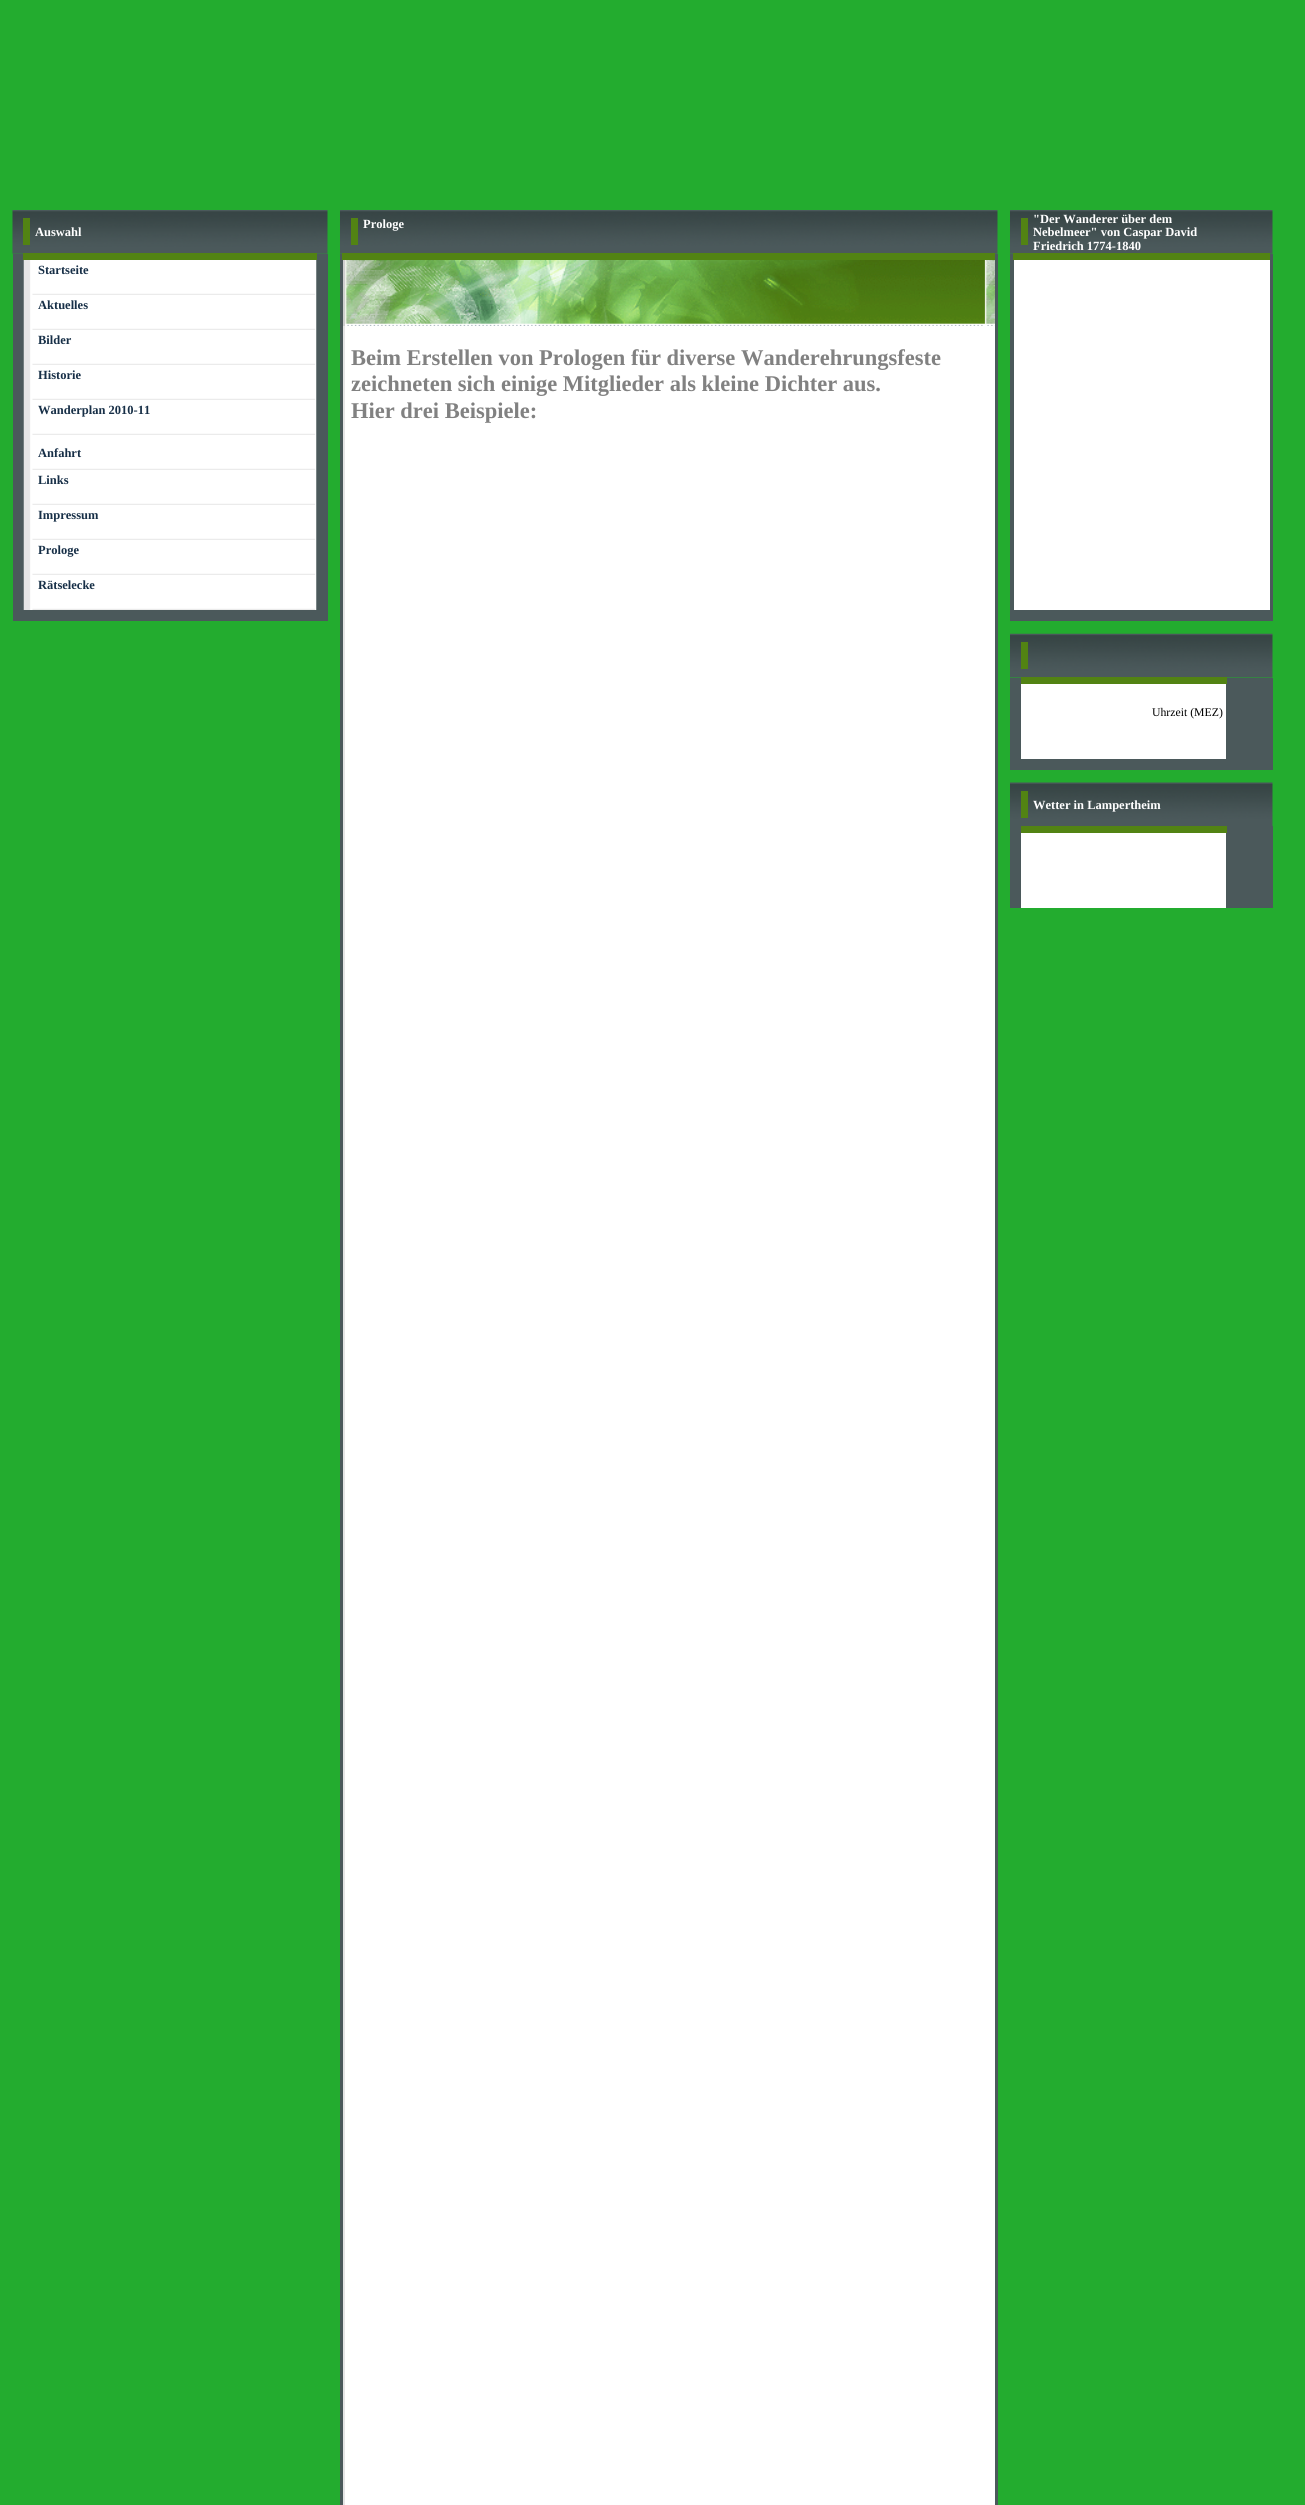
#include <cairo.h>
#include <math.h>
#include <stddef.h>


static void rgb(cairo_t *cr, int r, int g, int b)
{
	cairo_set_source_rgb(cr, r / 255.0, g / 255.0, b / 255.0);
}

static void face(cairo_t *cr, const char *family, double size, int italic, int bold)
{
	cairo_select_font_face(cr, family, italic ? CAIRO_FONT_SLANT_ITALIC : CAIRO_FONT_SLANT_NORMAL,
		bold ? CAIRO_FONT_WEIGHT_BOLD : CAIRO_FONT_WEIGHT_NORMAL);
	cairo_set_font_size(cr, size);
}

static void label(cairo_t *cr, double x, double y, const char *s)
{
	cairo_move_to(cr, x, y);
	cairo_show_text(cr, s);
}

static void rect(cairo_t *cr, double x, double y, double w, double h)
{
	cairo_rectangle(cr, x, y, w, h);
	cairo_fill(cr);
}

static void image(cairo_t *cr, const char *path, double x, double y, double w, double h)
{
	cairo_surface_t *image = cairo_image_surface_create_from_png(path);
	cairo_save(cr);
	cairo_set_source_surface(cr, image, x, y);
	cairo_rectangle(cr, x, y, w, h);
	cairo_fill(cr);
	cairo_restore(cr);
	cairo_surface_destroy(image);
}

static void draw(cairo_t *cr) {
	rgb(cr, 35, 172, 47);
	cairo_paint(cr);
	image(cr, "image0.png", 12, 210, 316, 44);
	rgb(cr, 82, 131, 19);
	rect(cr, 23, 218, 7, 27);
	face(cr, "Liberation Serif", 12.5, 0, 1);
	rgb(cr, 255, 255, 255);
	label(cr, 35, 236, "Auswahl");
	rgb(cr, 75, 89, 91);
	rect(cr, 13, 254, 315, 367);
	rgb(cr, 82, 131, 19);
	rect(cr, 23, 253, 294, 7);
	image(cr, "image1.png", 23, 260, 294, 35);
	rgb(cr, 23, 47, 71);
	label(cr, 38, 274, "Startseite");
	image(cr, "image1.png", 23, 295, 294, 35);
	label(cr, 38, 309, "Aktuelles");
	image(cr, "image1.png", 23, 330, 294, 35);
	label(cr, 38, 344, "Bilder");
	image(cr, "image1.png", 23, 365, 294, 35);
	label(cr, 38, 379, "Historie");
	image(cr, "image1.png", 23, 400, 294, 35);
	label(cr, 38, 414, "Wanderplan 2010-11");
	image(cr, "image1.png", 23, 435, 294, 35);
	label(cr, 38, 457, "Anfahrt");
	image(cr, "image1.png", 23, 470, 294, 35);
	label(cr, 38, 484, "Links");
	image(cr, "image1.png", 23, 505, 294, 35);
	label(cr, 38, 519, "Impressum");
	image(cr, "image1.png", 23, 540, 294, 35);
	label(cr, 38, 554, "Prologe");
	image(cr, "image1.png", 23, 575, 294, 35);
	label(cr, 38, 589, "Rätselecke");
	image(cr, "image2.png", 340, 210, 658, 44);
	rgb(cr, 82, 131, 19);
	rect(cr, 351, 218, 7, 27);
	rgb(cr, 255, 255, 255);
	label(cr, 363, 228, "Prologe");
	rgb(cr, 75, 89, 91);
	rect(cr, 340, 254, 658, 2251);
	rgb(cr, 82, 131, 19);
	rect(cr, 342, 253, 653, 7);
	rgb(cr, 206, 206, 206);
	rect(cr, 343, 260, 2, 66);
	image(cr, "image3.png", 345, 260, 650, 66);
	rgb(cr, 229, 229, 229);
	rect(cr, 343, 326, 2, 2179);
	rgb(cr, 255, 255, 255);
	rect(cr, 345, 326, 650, 2179);
	face(cr, "Liberation Serif", 22.5, 0, 1);
	rgb(cr, 129, 129, 129);
	label(cr, 351, 365, "Beim Erstellen von Prologen für diverse Wanderehrungsfeste");
	label(cr, 351, 391, "zeichneten sich einige Mitglieder als kleine Dichter aus.");
	label(cr, 351, 418, "Hier drei Beispiele:");
	image(cr, "image4.png", 1010, 210, 263, 44);
	rgb(cr, 82, 131, 19);
	rect(cr, 1021, 218, 7, 27);
	face(cr, "Liberation Serif", 12.5, 0, 1);
	rgb(cr, 255, 255, 255);
	label(cr, 1033, 223, "\"Der Wanderer über dem");
	label(cr, 1033, 236, "Nebelmeer\" von Caspar David");
	label(cr, 1033, 250, "Friedrich 1774-1840");
	rgb(cr, 75, 89, 91);
	rect(cr, 1010, 254, 263, 367);
	rgb(cr, 82, 131, 19);
	rect(cr, 1013, 253, 257, 7);
	rgb(cr, 255, 255, 255);
	rect(cr, 1014, 260, 256, 350);
	image(cr, "image5.png", 1010, 633, 263, 45);
	rgb(cr, 82, 131, 19);
	rect(cr, 1021, 642, 7, 27);
	rgb(cr, 75, 89, 91);
	rect(cr, 1010, 678, 263, 92);
	rgb(cr, 82, 131, 19);
	rect(cr, 1021, 677, 206, 7);
	rgb(cr, 255, 255, 255);
	rect(cr, 1021, 684, 205, 75);
	face(cr, "Liberation Serif", 11.75, 0, 0);
	rgb(cr, 0, 0, 0);
	label(cr, 1152, 716, "Uhrzeit (MEZ)");
	image(cr, "image6.png", 1010, 782, 263, 44);
	rgb(cr, 82, 131, 19);
	rect(cr, 1021, 791, 7, 27);
	face(cr, "Liberation Serif", 12.5, 0, 1);
	rgb(cr, 255, 255, 255);
	label(cr, 1033, 809, "Wetter in Lampertheim");
	rgb(cr, 75, 89, 91);
	rect(cr, 1010, 826, 263, 82);
	rgb(cr, 82, 131, 19);
	rect(cr, 1021, 826, 206, 7);
	rgb(cr, 255, 255, 255);
	rect(cr, 1021, 833, 205, 75);
}

int main(void) {
	cairo_surface_t *surface = cairo_image_surface_create(CAIRO_FORMAT_RGB24, 1305, 2505);
	cairo_t *cr = cairo_create(surface);
	cairo_font_options_t *options = cairo_font_options_create();
	cairo_font_options_set_hint_metrics(options, CAIRO_HINT_METRICS_OFF);
	cairo_font_options_set_hint_style(options, CAIRO_HINT_STYLE_NONE);
	cairo_set_font_options(cr, options);
	cairo_set_miter_limit(cr, 4);
	draw(cr);
	cairo_surface_write_to_png(surface, "render.png");
	cairo_font_options_destroy(options);
	cairo_destroy(cr);
	cairo_surface_destroy(surface);
	return 0;
}
